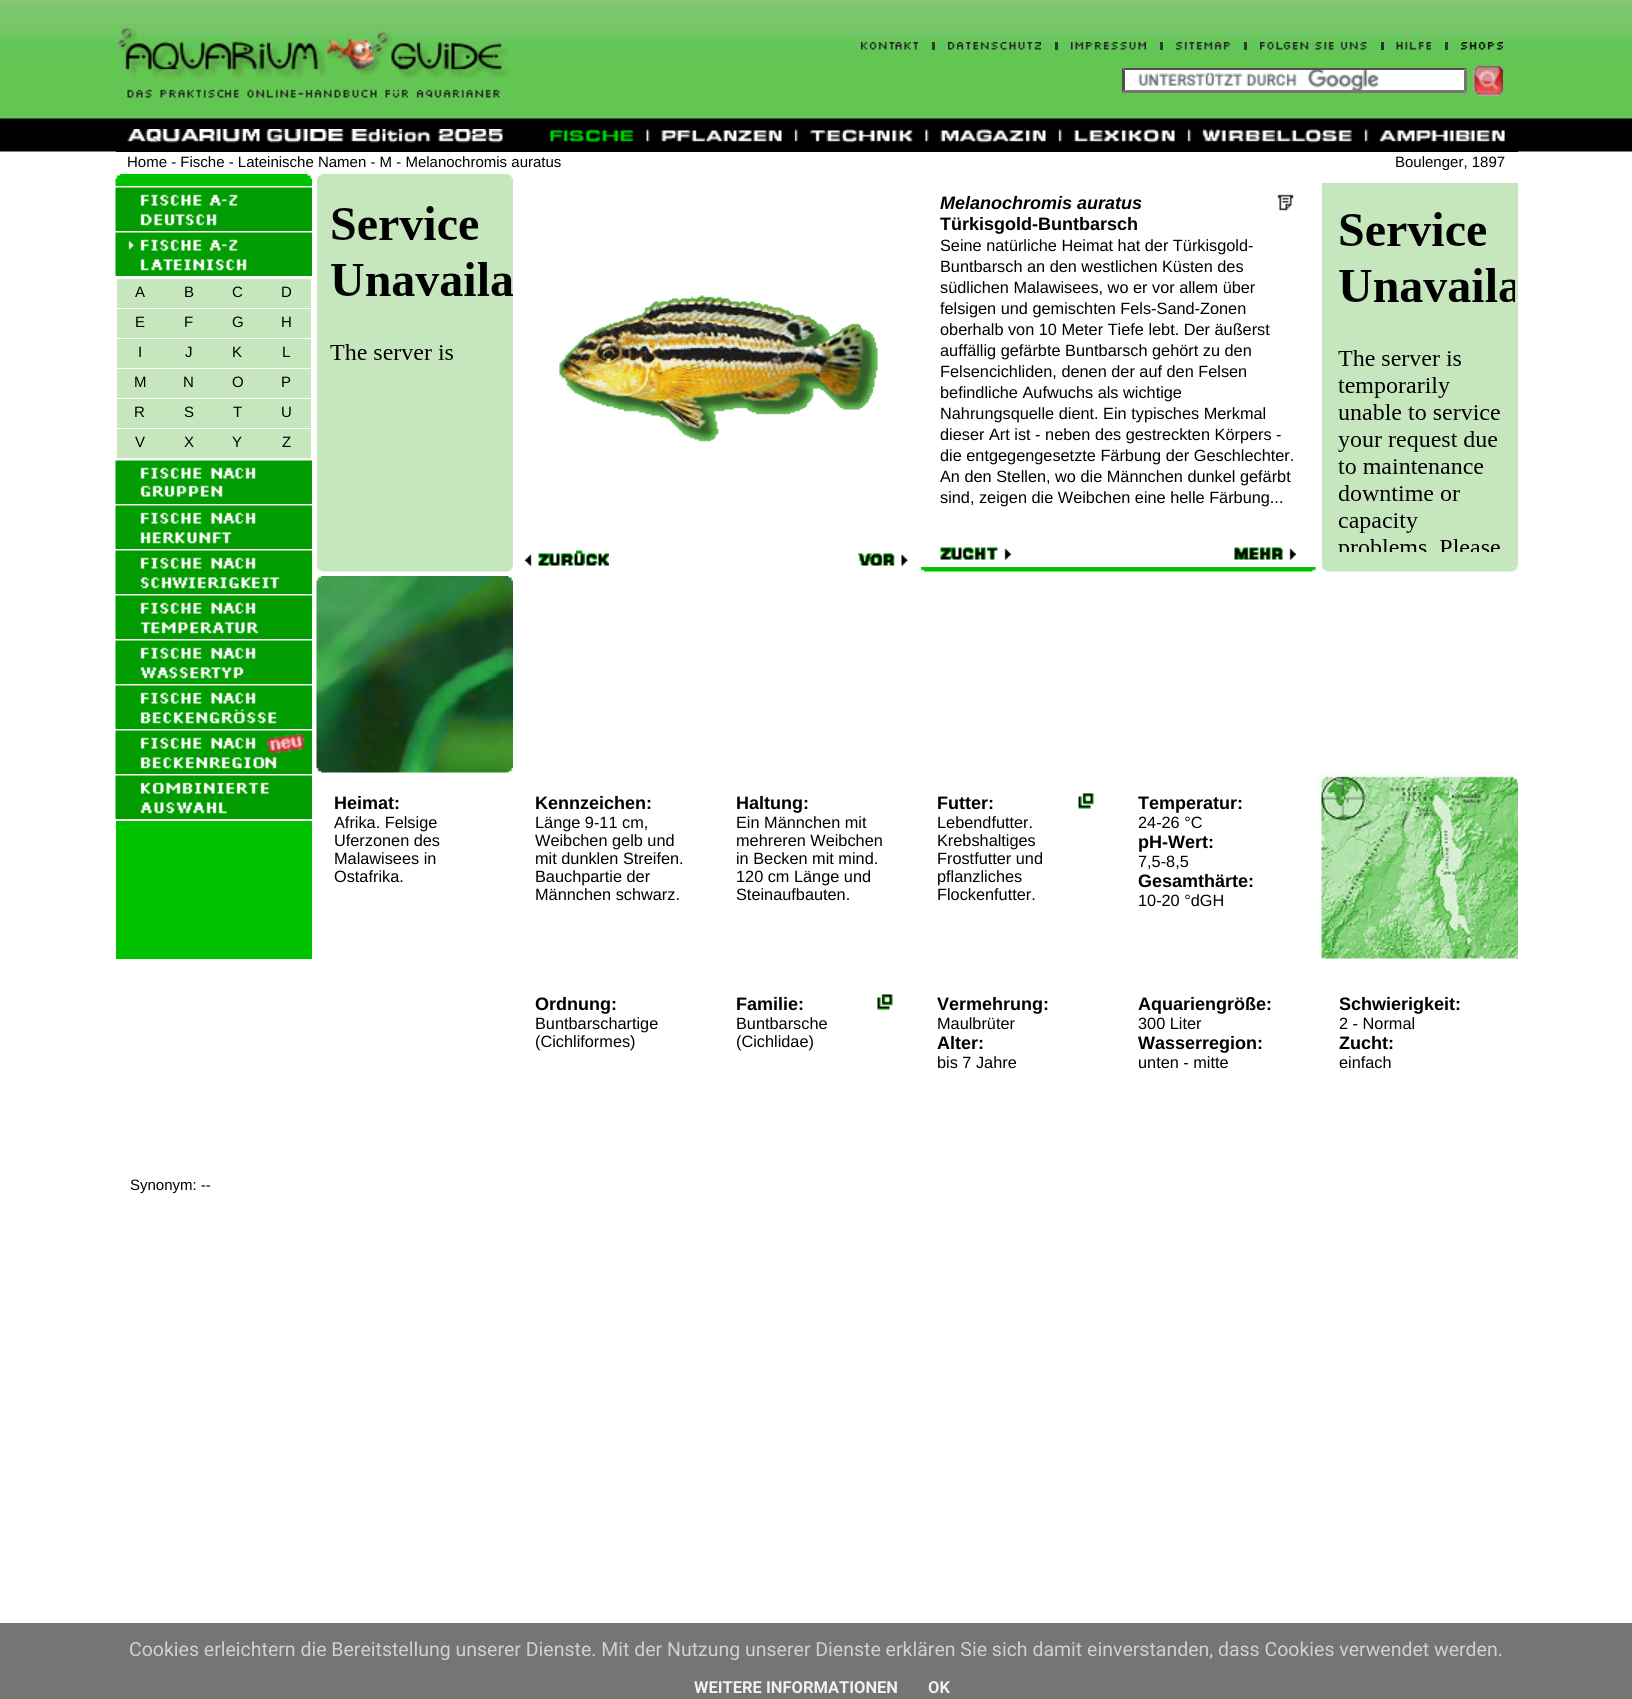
#include <cairo.h>
#include <math.h>
#include <stddef.h>


static void rgb(cairo_t *cr, int r, int g, int b)
{
	cairo_set_source_rgb(cr, r / 255.0, g / 255.0, b / 255.0);
}

static void face(cairo_t *cr, const char *family, double size, int italic, int bold)
{
	cairo_select_font_face(cr, family, italic ? CAIRO_FONT_SLANT_ITALIC : CAIRO_FONT_SLANT_NORMAL,
		bold ? CAIRO_FONT_WEIGHT_BOLD : CAIRO_FONT_WEIGHT_NORMAL);
	cairo_set_font_size(cr, size);
}

static void label(cairo_t *cr, double x, double y, const char *s)
{
	cairo_move_to(cr, x, y);
	cairo_show_text(cr, s);
}

static void rect(cairo_t *cr, double x, double y, double w, double h)
{
	cairo_rectangle(cr, x, y, w, h);
	cairo_fill(cr);
}

static void image(cairo_t *cr, const char *path, double x, double y, double w, double h)
{
	cairo_surface_t *image = cairo_image_surface_create_from_png(path);
	cairo_save(cr);
	cairo_set_source_surface(cr, image, x, y);
	cairo_rectangle(cr, x, y, w, h);
	cairo_fill(cr);
	cairo_restore(cr);
	cairo_surface_destroy(image);
}

static void draw(cairo_t *cr) {
	rgb(cr, 255, 255, 255);
	cairo_paint(cr);
	image(cr, "image0.png", 0, 0, 1632, 152);
	image(cr, "image1.png", 118, 28, 391, 70);
	image(cr, "image2.png", 861, 42, 57, 8);
	cairo_set_source_rgba(cr, 0.125, 0.125, 0.125, 0.81);
	rect(cr, 932, 42, 3, 8);
	image(cr, "image3.png", 948, 42, 93, 8);
	rect(cr, 1055, 42, 3, 8);
	image(cr, "image4.png", 1071, 42, 75, 8);
	rect(cr, 1160, 42, 3, 8);
	image(cr, "image5.png", 1176, 42, 54, 8);
	rect(cr, 1244, 42, 3, 8);
	image(cr, "image6.png", 1260, 42, 107, 8);
	cairo_set_source_rgba(cr, 0.125, 0.125, 0.125, 0.87);
	rect(cr, 1381, 42, 3, 8);
	image(cr, "image7.png", 1396, 42, 35, 8);
	cairo_set_source_rgba(cr, 0.125, 0.125, 0.125, 0.81);
	rect(cr, 1445, 42, 3, 8);
	image(cr, "image8.png", 1461, 42, 42, 8);
	rgb(cr, 255, 255, 255);
	rect(cr, 1122, 68, 345, 25);
	image(cr, "image9.png", 1138, 70, 241, 20);
	rgb(cr, 79, 79, 79);
	cairo_new_path(cr);
	cairo_move_to(cr, 1122, 68);
	cairo_line_to(cr, 1467, 68);
	cairo_line_to(cr, 1464, 70);
	cairo_line_to(cr, 1125, 70);
	cairo_close_path(cr);
	cairo_fill(cr);
	rgb(cr, 118, 118, 118);
	cairo_new_path(cr);
	cairo_move_to(cr, 1467, 67.5);
	cairo_line_to(cr, 1467, 93);
	cairo_line_to(cr, 1464, 90);
	cairo_line_to(cr, 1464, 70.5);
	cairo_close_path(cr);
	cairo_fill(cr);
	cairo_new_path(cr);
	cairo_move_to(cr, 1467, 93);
	cairo_line_to(cr, 1122, 93);
	cairo_line_to(cr, 1125, 90);
	cairo_line_to(cr, 1464, 90);
	cairo_close_path(cr);
	cairo_fill(cr);
	rgb(cr, 79, 79, 79);
	cairo_new_path(cr);
	cairo_move_to(cr, 1122, 93);
	cairo_line_to(cr, 1122, 67.5);
	cairo_line_to(cr, 1125, 70.5);
	cairo_line_to(cr, 1125, 90);
	cairo_close_path(cr);
	cairo_fill(cr);
	image(cr, "image10.png", 1473, 66, 30, 30);
	rgb(cr, 0, 0, 0);
	rect(cr, 116, 151, 1402, 1);
	image(cr, "image11.png", 127, 129, 376, 14);
	image(cr, "image12.png", 550, 129, 84, 14);
	image(cr, "image13.png", 646, 129, 4, 13);
	image(cr, "image14.png", 661, 130, 121, 12);
	image(cr, "image15.png", 794, 129, 5, 13);
	image(cr, "image16.png", 809, 129, 104, 14);
	image(cr, "image17.png", 925, 129, 4, 13);
	image(cr, "image18.png", 940, 129, 106, 14);
	image(cr, "image19.png", 1058, 129, 5, 13);
	image(cr, "image20.png", 1073, 129, 102, 14);
	image(cr, "image19.png", 1187, 129, 5, 13);
	image(cr, "image21.png", 1202, 129, 150, 14);
	image(cr, "image19.png", 1364, 129, 5, 13);
	image(cr, "image22.png", 1379, 130, 126, 12);
	face(cr, "Liberation Sans", 15, 0, 0);
	label(cr, 127, 167, "Home - Fische - Lateinische Namen - M - Melanochromis auratus");
	label(cr, 1395, 167, "Boulenger, 1897");
	rgb(cr, 0, 195, 0);
	rect(cr, 116, 821, 196, 138);
	image(cr, "image23.png", 115, 174, 197, 12);
	image(cr, "image24.png", 115, 187, 197, 44);
	image(cr, "image25.png", 115, 232, 197, 44);
	rgb(cr, 198, 231, 189);
	rect(cr, 117, 279, 194, 29);
	rgb(cr, 0, 0, 0);
	label(cr, 135, 297, "A");
	label(cr, 184, 297, "B");
	label(cr, 232, 297, "C");
	label(cr, 281, 297, "D");
	rgb(cr, 198, 231, 189);
	rect(cr, 117, 309, 194, 29);
	rgb(cr, 0, 0, 0);
	label(cr, 135, 327, "E");
	label(cr, 184, 327, "F");
	label(cr, 232, 327, "G");
	label(cr, 281, 327, "H");
	rgb(cr, 198, 231, 189);
	rect(cr, 117, 339, 194, 29);
	rgb(cr, 0, 0, 0);
	label(cr, 138, 357, "I");
	label(cr, 185, 357, "J");
	label(cr, 232, 357, "K");
	label(cr, 282, 357, "L");
	rgb(cr, 198, 231, 189);
	rect(cr, 117, 369, 194, 29);
	rgb(cr, 0, 0, 0);
	label(cr, 134, 387, "M");
	label(cr, 183, 387, "N");
	label(cr, 232, 387, "O");
	label(cr, 281, 387, "P");
	rgb(cr, 198, 231, 189);
	rect(cr, 117, 399, 194, 29);
	rgb(cr, 0, 0, 0);
	label(cr, 134, 417, "R");
	label(cr, 184, 417, "S");
	label(cr, 233, 417, "T");
	label(cr, 281, 417, "U");
	rgb(cr, 198, 231, 189);
	rect(cr, 117, 429, 194, 29);
	rgb(cr, 0, 0, 0);
	label(cr, 135, 447, "V");
	label(cr, 184, 447, "X");
	label(cr, 232, 447, "Y");
	label(cr, 282, 447, "Z");
	image(cr, "image26.png", 115, 460, 197, 44);
	image(cr, "image27.png", 115, 505, 197, 44);
	image(cr, "image28.png", 115, 550, 197, 44);
	image(cr, "image29.png", 115, 595, 197, 44);
	image(cr, "image30.png", 115, 640, 197, 44);
	image(cr, "image31.png", 115, 685, 197, 44);
	image(cr, "image32.png", 115, 730, 197, 44);
	image(cr, "image33.png", 115, 775, 197, 44);
	rgb(cr, 198, 231, 189);
	rect(cr, 317, 180, 1, 365);
	rect(cr, 318, 180, 195, 365);
	image(cr, "image34.png", 330, 206, 183, 154);
	image(cr, "image35.png", 316, 174, 197, 6);
	image(cr, "image36.png", 559, 295, 319, 147);
	image(cr, "image37.png", 525, 550, 84, 16);
	image(cr, "image38.png", 858, 553, 50, 13);
	face(cr, "Liberation Sans", 18, 1, 1);
	rgb(cr, 0, 0, 0);
	label(cr, 940, 209, "Melanochromis auratus");
	image(cr, "image39.png", 1277, 194, 17, 17);
	face(cr, "Liberation Sans", 18, 0, 1);
	label(cr, 940, 230, "Türkisgold-Buntbarsch");
	face(cr, "Liberation Sans", 16.3, 0, 0);
	label(cr, 940, 251, "Seine natürliche Heimat hat der Türkisgold-");
	label(cr, 940, 272, "Buntbarsch an den westlichen Küsten des");
	label(cr, 940, 293, "südlichen Malawisees, wo er vor allem über");
	label(cr, 940, 314, "felsigen und gemischten Fels-Sand-Zonen");
	label(cr, 940, 335, "oberhalb von 10 Meter Tiefe lebt. Der äußerst");
	label(cr, 940, 356, "auffällig gefärbte Buntbarsch gehört zu den");
	label(cr, 940, 377, "Felsencichliden, denen der auf den Felsen");
	label(cr, 940, 398, "befindliche Aufwuchs als wichtige");
	label(cr, 940, 419, "Nahrungsquelle dient. Ein typisches Merkmal");
	label(cr, 940, 440, "dieser Art ist - neben des gestreckten Körpers -");
	label(cr, 940, 461, "die entgegengesetzte Färbung der Geschlechter.");
	label(cr, 940, 482, "An den Stellen, wo die Männchen dunkel gefärbt");
	label(cr, 940, 503, "sind, zeigen die Weibchen eine helle Färbung...");
	image(cr, "image40.png", 940, 547, 71, 13);
	image(cr, "image41.png", 1234, 547, 62, 13);
	rgb(cr, 198, 231, 189);
	rect(cr, 1322, 183, 196, 384);
	image(cr, "image42.png", 1338, 212, 177, 340);
	rect(cr, 317, 545, 196, 22);
	image(cr, "image43.png", 317, 567, 195, 5);
	image(cr, "image44.png", 920, 567, 597, 5);
	image(cr, "image45.png", 316, 576, 197, 197);
	image(cr, "image46.png", 1317, 772, 201, 20);
	face(cr, "Liberation Sans", 18, 0, 1);
	rgb(cr, 0, 0, 0);
	label(cr, 334, 809, "Heimat:");
	face(cr, "Liberation Sans", 16.3, 0, 0);
	label(cr, 334, 828, "Afrika. Felsige");
	label(cr, 334, 846, "Uferzonen des");
	label(cr, 334, 864, "Malawisees in");
	label(cr, 334, 882, "Ostafrika.");
	face(cr, "Liberation Sans", 18, 0, 1);
	label(cr, 535, 809, "Kennzeichen:");
	face(cr, "Liberation Sans", 16.3, 0, 0);
	label(cr, 535, 828, "Länge 9-11 cm,");
	label(cr, 535, 846, "Weibchen gelb und");
	label(cr, 535, 864, "mit dunklen Streifen.");
	label(cr, 535, 882, "Bauchpartie der");
	label(cr, 535, 900, "Männchen schwarz.");
	face(cr, "Liberation Sans", 18, 0, 1);
	label(cr, 736, 809, "Haltung:");
	face(cr, "Liberation Sans", 16.3, 0, 0);
	label(cr, 736, 828, "Ein Männchen mit");
	label(cr, 736, 846, "mehreren Weibchen");
	label(cr, 736, 864, "in Becken mit mind.");
	label(cr, 736, 882, "120 cm Länge und");
	label(cr, 736, 900, "Steinaufbauten.");
	face(cr, "Liberation Sans", 18, 0, 1);
	label(cr, 937, 809, "Futter:");
	image(cr, "image47.png", 1078, 793, 16, 16);
	face(cr, "Liberation Sans", 16.3, 0, 0);
	label(cr, 937, 828, "Lebendfutter.");
	label(cr, 937, 846, "Krebshaltiges");
	label(cr, 937, 864, "Frostfutter und");
	label(cr, 937, 882, "pflanzliches");
	label(cr, 937, 900, "Flockenfutter.");
	face(cr, "Liberation Sans", 18, 0, 1);
	label(cr, 1138, 809, "Temperatur:");
	face(cr, "Liberation Sans", 16.3, 0, 0);
	label(cr, 1138, 828, "24-26 °C");
	face(cr, "Liberation Sans", 18, 0, 1);
	label(cr, 1138, 848, "pH-Wert:");
	face(cr, "Liberation Sans", 16.3, 0, 0);
	label(cr, 1138, 867, "7,5-8,5");
	face(cr, "Liberation Sans", 18, 0, 1);
	label(cr, 1138, 887, "Gesamthärte:");
	face(cr, "Liberation Sans", 16.3, 0, 0);
	label(cr, 1138, 906, "10-20 °dGH");
	image(cr, "image48.png", 1321, 792, 197, 167);
	face(cr, "Liberation Sans", 18, 0, 1);
	label(cr, 535, 1010, "Ordnung:");
	face(cr, "Liberation Sans", 16.3, 0, 0);
	label(cr, 535, 1029, "Buntbarschartige");
	label(cr, 535, 1047, "(Cichliformes)");
	face(cr, "Liberation Sans", 18, 0, 1);
	label(cr, 736, 1010, "Familie:");
	image(cr, "image49.png", 877, 994, 16, 16);
	face(cr, "Liberation Sans", 16.3, 0, 0);
	label(cr, 736, 1029, "Buntbarsche");
	label(cr, 736, 1047, "(Cichlidae)");
	face(cr, "Liberation Sans", 18, 0, 1);
	label(cr, 937, 1010, "Vermehrung:");
	face(cr, "Liberation Sans", 16.3, 0, 0);
	label(cr, 937, 1029, "Maulbrüter");
	face(cr, "Liberation Sans", 18, 0, 1);
	label(cr, 937, 1049, "Alter:");
	face(cr, "Liberation Sans", 16.3, 0, 0);
	label(cr, 937, 1068, "bis 7 Jahre");
	face(cr, "Liberation Sans", 18, 0, 1);
	label(cr, 1138, 1010, "Aquariengröße:");
	face(cr, "Liberation Sans", 16.3, 0, 0);
	label(cr, 1138, 1029, "300 Liter");
	face(cr, "Liberation Sans", 18, 0, 1);
	label(cr, 1138, 1049, "Wasserregion:");
	face(cr, "Liberation Sans", 16.3, 0, 0);
	label(cr, 1138, 1068, "unten - mitte");
	face(cr, "Liberation Sans", 18, 0, 1);
	label(cr, 1339, 1010, "Schwierigkeit:");
	face(cr, "Liberation Sans", 16.3, 0, 0);
	label(cr, 1339, 1029, "2 - Normal");
	face(cr, "Liberation Sans", 18, 0, 1);
	label(cr, 1339, 1049, "Zucht:");
	face(cr, "Liberation Sans", 16.3, 0, 0);
	label(cr, 1339, 1068, "einfach");
	face(cr, "Liberation Sans", 15, 0, 0);
	label(cr, 130, 1190, "Synonym: --");
	cairo_set_source_rgba(cr, 0.4, 0.4, 0.4, 0.9);
	rect(cr, 0, 1623, 1632, 76);
	face(cr, "Roboto", 19.5, 0, 0);
	rgb(cr, 209, 209, 209);
	label(cr, 129, 1656, "Cookies erleichtern die Bereitstellung unserer Dienste. Mit der Nutzung unserer Dienste erklären Sie sich damit einverstanden, dass Cookies verwendet werden.");
	face(cr, "Roboto", 16.5, 0, 1);
	rgb(cr, 240, 240, 240);
	label(cr, 694, 1693, "WEITERE INFORMATIONEN");
	label(cr, 928, 1693, "OK");
}

int main(void) {
	cairo_surface_t *surface = cairo_image_surface_create(CAIRO_FORMAT_RGB24, 1632, 1699);
	cairo_t *cr = cairo_create(surface);
	cairo_font_options_t *options = cairo_font_options_create();
	cairo_font_options_set_hint_metrics(options, CAIRO_HINT_METRICS_OFF);
	cairo_font_options_set_hint_style(options, CAIRO_HINT_STYLE_NONE);
	cairo_set_font_options(cr, options);
	cairo_set_miter_limit(cr, 4);
	draw(cr);
	cairo_surface_write_to_png(surface, "render.png");
	cairo_font_options_destroy(options);
	cairo_destroy(cr);
	cairo_surface_destroy(surface);
	return 0;
}
